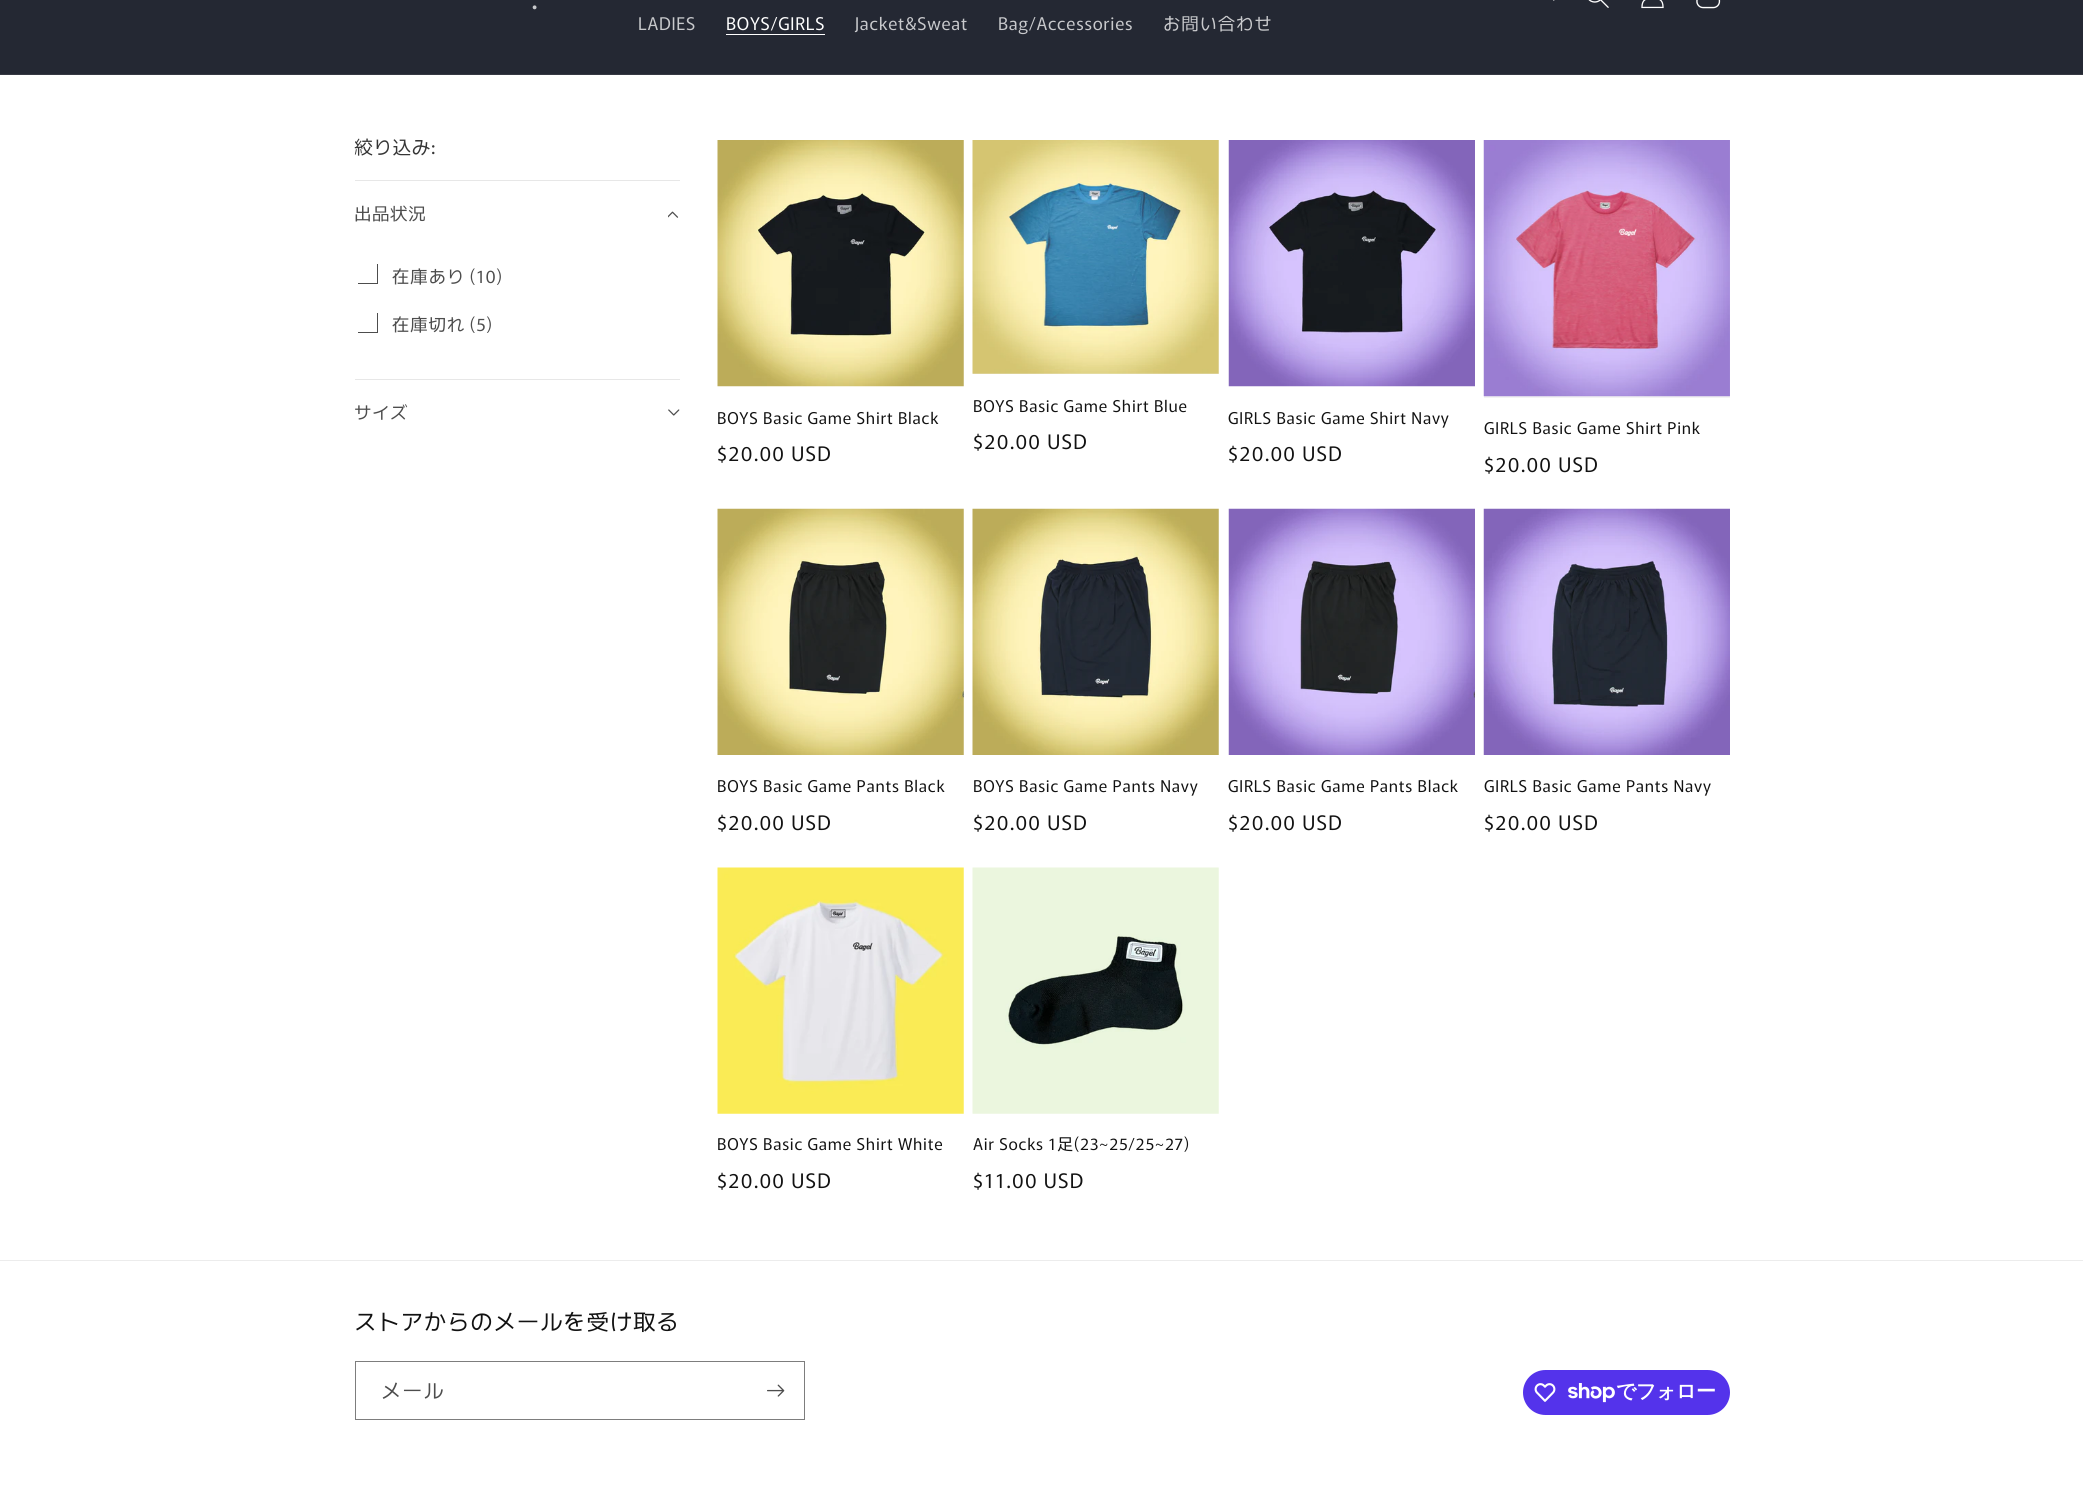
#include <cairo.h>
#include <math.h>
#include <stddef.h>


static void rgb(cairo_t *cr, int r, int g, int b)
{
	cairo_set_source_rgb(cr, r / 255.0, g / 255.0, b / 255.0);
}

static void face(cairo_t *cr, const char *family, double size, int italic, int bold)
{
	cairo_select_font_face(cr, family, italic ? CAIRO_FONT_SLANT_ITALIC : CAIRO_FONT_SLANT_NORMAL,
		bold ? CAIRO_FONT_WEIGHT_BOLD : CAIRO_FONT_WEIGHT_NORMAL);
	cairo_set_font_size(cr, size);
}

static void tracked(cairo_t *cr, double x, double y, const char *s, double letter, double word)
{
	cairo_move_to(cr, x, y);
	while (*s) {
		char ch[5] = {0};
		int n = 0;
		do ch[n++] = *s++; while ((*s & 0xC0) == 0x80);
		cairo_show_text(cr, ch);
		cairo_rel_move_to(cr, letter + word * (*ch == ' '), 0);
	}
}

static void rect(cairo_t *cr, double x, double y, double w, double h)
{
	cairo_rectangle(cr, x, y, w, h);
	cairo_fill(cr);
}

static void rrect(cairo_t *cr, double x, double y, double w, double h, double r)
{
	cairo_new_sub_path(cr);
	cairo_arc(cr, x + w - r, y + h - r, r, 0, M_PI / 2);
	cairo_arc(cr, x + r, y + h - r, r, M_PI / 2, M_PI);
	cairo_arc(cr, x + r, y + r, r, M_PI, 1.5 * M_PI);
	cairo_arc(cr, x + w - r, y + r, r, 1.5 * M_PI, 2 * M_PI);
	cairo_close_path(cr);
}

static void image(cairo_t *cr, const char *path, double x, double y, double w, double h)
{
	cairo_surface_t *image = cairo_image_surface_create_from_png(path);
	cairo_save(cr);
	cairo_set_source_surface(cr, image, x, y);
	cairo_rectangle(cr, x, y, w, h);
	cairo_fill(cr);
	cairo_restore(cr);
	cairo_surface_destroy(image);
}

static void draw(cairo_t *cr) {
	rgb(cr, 255, 255, 255);
	cairo_paint(cr);
	rgb(cr, 36, 40, 51);
	rect(cr, 0, 0, 2083, 74);
	rgb(cr, 54, 57, 67);
	rect(cr, 0, 74, 2083, 1);
	face(cr, "Murecho", 30, 0, 0);
	rgb(cr, 200, 201, 204);
	tracked(cr, 531, 9, ".", 0.75, 0);
	image(cr, "image0.png", 1553, 0, 2, 1);
	image(cr, "image1.png", 1588, 0, 21, 8);
	image(cr, "image2.png", 1641, 0, 23, 9);
	image(cr, "image3.png", 1696, 0, 25, 9);
	face(cr, "Murecho", 17.5, 0, 0);
	tracked(cr, 638, 30, "LADIES", 0.75, 0);
	rgb(cr, 255, 255, 255);
	tracked(cr, 726, 30, "BOYS/GIRLS", 0.75, 0);
	rect(cr, 726, 34, 99, 1);
	rgb(cr, 200, 201, 204);
	tracked(cr, 855, 30, "Jacket&Sweat", 0.75, 0);
	tracked(cr, 998, 30, "Bag/Accessories", 0.75, 0);
	tracked(cr, 1163, 30, "お問い合わせ", 0.75, 0);
	face(cr, "Murecho", 18.75, 0, 0);
	rgb(cr, 54, 54, 54);
	tracked(cr, 354, 154, "絞り込み:", 0.5, 0);
	rgb(cr, 231, 231, 231);
	rect(cr, 355, 180, 325, 1);
	face(cr, "Murecho", 17.5, 0, 0);
	rgb(cr, 77, 77, 77);
	tracked(cr, 354, 220, "出品状況", 0.5, 0);
	image(cr, "image4.png", 668, 211, 11, 7);
	cairo_save(cr);
	cairo_rectangle(cr, 358, 264, 20, 20);
	cairo_clip(cr);
	cairo_rectangle(cr, 357.5, 263.5, 20, 20);
	cairo_set_line_width(cr, 1);
	cairo_stroke(cr);
	cairo_restore(cr);
	tracked(cr, 392, 283, "在庫あり (10)", 0.75, 0);
	cairo_save(cr);
	cairo_rectangle(cr, 358, 313, 20, 20);
	cairo_clip(cr);
	cairo_rectangle(cr, 357.5, 312.5, 20, 20);
	cairo_set_line_width(cr, 1);
	cairo_stroke(cr);
	cairo_restore(cr);
	tracked(cr, 392, 331, "在庫切れ (5)", 0.75, 0);
	rgb(cr, 231, 231, 231);
	rect(cr, 355, 379, 325, 1);
	rgb(cr, 77, 77, 77);
	tracked(cr, 354, 419, "サイズ", 0.5, 0);
	image(cr, "image5.png", 668, 409, 12, 7);
	image(cr, "image6.png", 717, 140, 247, 247);
	face(cr, "Murecho", 16.25, 0, 0);
	rgb(cr, 18, 18, 18);
	tracked(cr, 717, 424, "BOYS Basic Game Shirt Black", 0.75, 0);
	face(cr, "Murecho", 20, 0, 0);
	tracked(cr, 717, 461, "$20.00 USD", 1.25, 0);
	rgb(cr, 243, 243, 243);
	rect(cr, 973, 140, 246, 234);
	image(cr, "image7.png", 972, 140, 247, 234);
	face(cr, "Murecho", 16.25, 0, 0);
	rgb(cr, 18, 18, 18);
	tracked(cr, 973, 412, "BOYS Basic Game Shirt Blue", 0.75, 0);
	face(cr, "Murecho", 20, 0, 0);
	tracked(cr, 973, 449, "$20.00 USD", 1.25, 0);
	image(cr, "image8.png", 1228, 140, 247, 247);
	face(cr, "Murecho", 16.25, 0, 0);
	tracked(cr, 1228, 424, "GIRLS Basic Game Shirt Navy", 0.75, 0);
	face(cr, "Murecho", 20, 0, 0);
	tracked(cr, 1228, 461, "$20.00 USD", 1.25, 0);
	rgb(cr, 243, 243, 243);
	rect(cr, 1484, 140, 246, 258);
	image(cr, "image9.png", 1483, 140, 247, 257);
	face(cr, "Murecho", 16.25, 0, 0);
	rgb(cr, 18, 18, 18);
	tracked(cr, 1484, 434, "GIRLS Basic Game Shirt Pink", 0.75, 0);
	face(cr, "Murecho", 20, 0, 0);
	tracked(cr, 1484, 472, "$20.00 USD", 1.25, 0);
	image(cr, "image10.png", 717, 508, 247, 247);
	face(cr, "Murecho", 16.25, 0, 0);
	tracked(cr, 717, 792, "BOYS Basic Game Pants Black", 0.75, 0);
	face(cr, "Murecho", 20, 0, 0);
	tracked(cr, 717, 830, "$20.00 USD", 1.25, 0);
	image(cr, "image11.png", 972, 508, 247, 247);
	face(cr, "Murecho", 16.25, 0, 0);
	tracked(cr, 973, 792, "BOYS Basic Game Pants Navy", 0.75, 0);
	face(cr, "Murecho", 20, 0, 0);
	tracked(cr, 973, 830, "$20.00 USD", 1.25, 0);
	image(cr, "image12.png", 1228, 508, 247, 247);
	face(cr, "Murecho", 16.25, 0, 0);
	tracked(cr, 1228, 792, "GIRLS Basic Game Pants Black", 0.75, 0);
	face(cr, "Murecho", 20, 0, 0);
	tracked(cr, 1228, 830, "$20.00 USD", 1.25, 0);
	image(cr, "image13.png", 1483, 508, 247, 247);
	face(cr, "Murecho", 16.25, 0, 0);
	tracked(cr, 1484, 792, "GIRLS Basic Game Pants Navy", 0.75, 0);
	face(cr, "Murecho", 20, 0, 0);
	tracked(cr, 1484, 830, "$20.00 USD", 1.25, 0);
	image(cr, "image14.png", 717, 867, 247, 247);
	face(cr, "Murecho", 16.25, 0, 0);
	tracked(cr, 717, 1150, "BOYS Basic Game Shirt White", 0.75, 0);
	face(cr, "Murecho", 20, 0, 0);
	tracked(cr, 717, 1188, "$20.00 USD", 1.25, 0);
	image(cr, "image15.png", 972, 867, 247, 247);
	face(cr, "Murecho", 16.25, 0, 0);
	tracked(cr, 973, 1150, "Air Socks 1足(23~25/25~27)", 0.75, 0);
	face(cr, "Murecho", 20, 0, 0);
	tracked(cr, 973, 1188, "$11.00 USD", 1.25, 0);
	rgb(cr, 236, 236, 236);
	rect(cr, 0, 1260, 2083, 1);
	face(cr, "Murecho", 22.5, 0, 0);
	rgb(cr, 18, 18, 18);
	tracked(cr, 354, 1330, "ストアからのメールを受け取る", 0.75, 0);
	cairo_rectangle(cr, 355.5, 1361.5, 449, 58);
	rgb(cr, 125, 125, 125);
	cairo_set_line_width(cr, 1);
	cairo_stroke(cr);
	face(cr, "Murecho", 20, 0, 0);
	rgb(cr, 77, 77, 77);
	tracked(cr, 381, 1398, "メール", 1.25, 0);
	image(cr, "image16.png", 767, 1384, 18, 13);
	rgb(cr, 84, 51, 235);
	rrect(cr, 1523, 1370, 207, 45, 22.5);
	cairo_fill(cr);
	image(cr, "image17.png", 1534, 1383, 22, 19);
	image(cr, "image18.png", 1568, 1383, 47, 20);
	face(cr, "WenQuanYi Zen Hei", 20, 0, 1);
	rgb(cr, 255, 255, 255);
	tracked(cr, 1616, 1398, "でフォロー", -0.5, 0);
}

int main(void) {
	cairo_surface_t *surface = cairo_image_surface_create(CAIRO_FORMAT_RGB24, 2083, 1497);
	cairo_t *cr = cairo_create(surface);
	cairo_font_options_t *options = cairo_font_options_create();
	cairo_font_options_set_hint_metrics(options, CAIRO_HINT_METRICS_OFF);
	cairo_font_options_set_hint_style(options, CAIRO_HINT_STYLE_NONE);
	cairo_set_font_options(cr, options);
	cairo_set_miter_limit(cr, 4);
	draw(cr);
	cairo_surface_write_to_png(surface, "render.png");
	cairo_font_options_destroy(options);
	cairo_destroy(cr);
	cairo_surface_destroy(surface);
	return 0;
}
